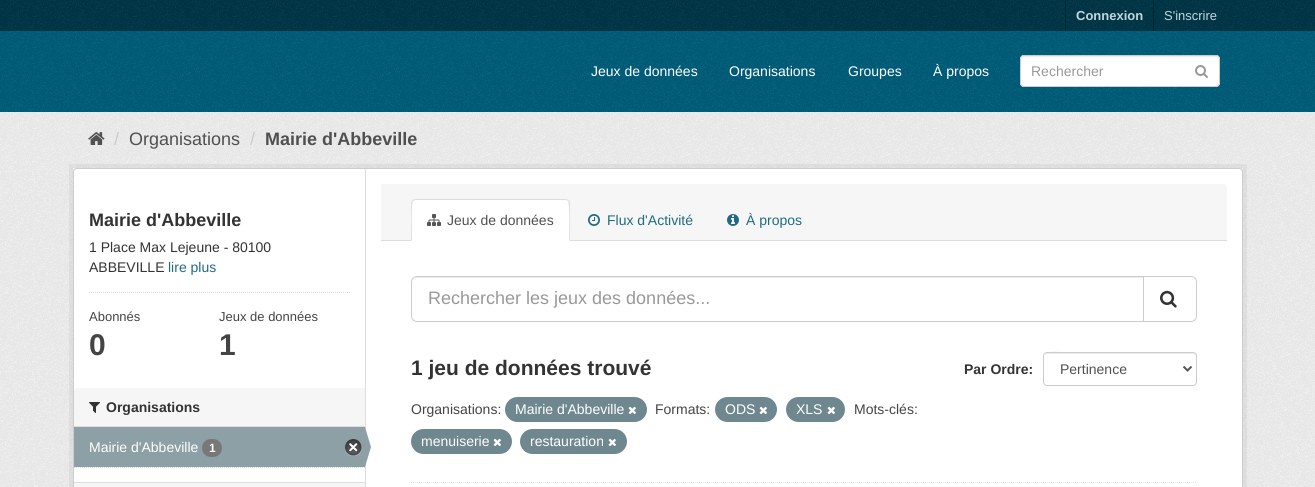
#include <cairo.h>
#include <math.h>
#include <stddef.h>


static void rgb(cairo_t *cr, int r, int g, int b)
{
	cairo_set_source_rgb(cr, r / 255.0, g / 255.0, b / 255.0);
}

static void face(cairo_t *cr, const char *family, double size, int italic, int bold)
{
	cairo_select_font_face(cr, family, italic ? CAIRO_FONT_SLANT_ITALIC : CAIRO_FONT_SLANT_NORMAL,
		bold ? CAIRO_FONT_WEIGHT_BOLD : CAIRO_FONT_WEIGHT_NORMAL);
	cairo_set_font_size(cr, size);
}

static void label(cairo_t *cr, double x, double y, const char *s)
{
	cairo_move_to(cr, x, y);
	cairo_show_text(cr, s);
}

static void rect(cairo_t *cr, double x, double y, double w, double h)
{
	cairo_rectangle(cr, x, y, w, h);
	cairo_fill(cr);
}

static void rrect(cairo_t *cr, double x, double y, double w, double h, double r)
{
	cairo_new_sub_path(cr);
	cairo_arc(cr, x + w - r, y + h - r, r, 0, M_PI / 2);
	cairo_arc(cr, x + r, y + h - r, r, M_PI / 2, M_PI);
	cairo_arc(cr, x + r, y + r, r, M_PI, 1.5 * M_PI);
	cairo_arc(cr, x + w - r, y + r, r, 1.5 * M_PI, 2 * M_PI);
	cairo_close_path(cr);
}

static void image(cairo_t *cr, const char *path, double x, double y, double w, double h)
{
	cairo_surface_t *image = cairo_image_surface_create_from_png(path);
	cairo_save(cr);
	cairo_set_source_surface(cr, image, x, y);
	cairo_rectangle(cr, x, y, w, h);
	cairo_fill(cr);
	cairo_restore(cr);
	cairo_surface_destroy(image);
}

static void draw(cairo_t *cr) {
	rgb(cr, 0, 54, 71);
	cairo_paint(cr);
	image(cr, "image0.png", 0, 0, 1315, 31);
	rgb(cr, 0, 35, 46);
	rect(cr, 1065, 0, 1, 31);
	face(cr, "Liberation Sans", 13, 0, 1);
	rgb(cr, 191, 215, 222);
	label(cr, 1076, 20, "Connexion");
	rgb(cr, 0, 35, 46);
	rect(cr, 1153, 0, 1, 31);
	face(cr, "Liberation Sans", 13, 0, 0);
	rgb(cr, 191, 215, 222);
	label(cr, 1164, 20, "S'inscrire");
	rgb(cr, 0, 93, 122);
	rect(cr, 0, 31, 1315, 81);
	image(cr, "image1.png", 0, 31, 1315, 81);
	face(cr, "Liberation Sans", 14, 0, 0);
	rgb(cr, 255, 255, 255);
	label(cr, 591, 76, "Jeux de données");
	label(cr, 729, 76, "Organisations");
	label(cr, 848, 76, "Groupes");
	label(cr, 933, 76, "À propos");
	rrect(cr, 1020, 55, 200, 32, 4);
	cairo_fill(cr);
	rgb(cr, 236, 236, 236);
	cairo_new_path(cr);
	cairo_move_to(cr, 1024, 57);
	cairo_line_to(cr, 1216, 57);
	cairo_curve_to(cr, 1218, 57, 1219, 58, 1219, 60);
	cairo_curve_to(cr, 1219, 58, 1218, 56, 1216, 56);
	cairo_line_to(cr, 1024, 56);
	cairo_curve_to(cr, 1022, 56, 1021, 58, 1021, 60);
	cairo_curve_to(cr, 1021, 58, 1022, 57, 1024, 57);
	cairo_close_path(cr);
	cairo_fill(cr);
	rrect(cr, 1020.5, 55.5, 199, 31, 3.5);
	rgb(cr, 204, 204, 204);
	cairo_set_line_width(cr, 1);
	cairo_stroke(cr);
	rgb(cr, 153, 153, 153);
	label(cr, 1031, 76, "Rechercher");
	image(cr, "image2.png", 1195, 65, 13, 13);
	rgb(cr, 238, 238, 238);
	rect(cr, 0, 112, 1315, 375);
	image(cr, "image3.png", 0, 112, 1315, 375);
	image(cr, "image4.png", 88, 132, 17, 13);
	face(cr, "Liberation Sans", 18, 0, 0);
	rgb(cr, 204, 204, 204);
	label(cr, 114, 145, "/");
	rgb(cr, 80, 80, 80);
	label(cr, 129, 145, "Organisations");
	rgb(cr, 204, 204, 204);
	label(cr, 250, 145, "/");
	face(cr, "Liberation Sans", 18, 0, 1);
	rgb(cr, 80, 80, 80);
	label(cr, 265, 145, "Mairie d'Abbeville");
	cairo_rectangle(cr, 71, 166, 1174, 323);
	cairo_set_source_rgba(cr, 0, 0, 0, 0.05);
	cairo_set_line_width(cr, 4);
	cairo_stroke(cr);
	rgb(cr, 255, 255, 255);
	rrect(cr, 73.5, 168.5, 1169, 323, 3.5);
	cairo_fill_preserve(cr);
	rgb(cr, 204, 204, 204);
	cairo_set_line_width(cr, 1);
	cairo_stroke(cr);
	rgb(cr, 51, 51, 51);
	label(cr, 89, 226, "Mairie d'Abbeville");
	face(cr, "Liberation Sans", 14, 0, 0);
	label(cr, 89, 252, "1 Place Max Lejeune - 80100");
	label(cr, 89, 272, "ABBEVILLE");
	rgb(cr, 32, 107, 130);
	label(cr, 168, 272, "lire plus");
	cairo_new_path(cr);
	cairo_move_to(cr, 89, 292.5);
	cairo_line_to(cr, 350, 292.5);
	rgb(cr, 221, 221, 221);
	cairo_set_dash(cr, (double[]){1, 1}, 2, 0);
	cairo_stroke(cr);
	face(cr, "Liberation Sans", 13, 0, 0);
	rgb(cr, 68, 68, 68);
	label(cr, 89, 321, "Abonnés");
	face(cr, "Liberation Sans", 30, 0, 1);
	label(cr, 89, 355, "0");
	face(cr, "Liberation Sans", 13, 0, 0);
	label(cr, 219, 321, "Jeux de données");
	face(cr, "Liberation Sans", 30, 0, 1);
	label(cr, 219, 355, "1");
	rgb(cr, 246, 246, 246);
	cairo_new_path(cr);
	cairo_move_to(cr, 77, 388);
	cairo_line_to(cr, 365, 388);
	cairo_line_to(cr, 365, 427);
	cairo_line_to(cr, 74, 427);
	cairo_line_to(cr, 74, 391);
	cairo_curve_to(cr, 74, 389.5, 75.5, 388, 77, 388);
	cairo_close_path(cr);
	cairo_fill(cr);
	rgb(cr, 221, 221, 221);
	rect(cr, 74, 426, 291, 1);
	image(cr, "image5.png", 89, 402, 11, 11);
	face(cr, "Liberation Sans", 14, 0, 1);
	rgb(cr, 51, 51, 51);
	label(cr, 106, 412, "Organisations");
	rgb(cr, 140, 160, 166);
	rect(cr, 74, 427, 291, 40);
	face(cr, "Liberation Sans", 14, 0, 0);
	rgb(cr, 255, 255, 255);
	label(cr, 89, 452, "Mairie d'Abbeville");
	rgb(cr, 119, 119, 119);
	rrect(cr, 202, 439, 20, 18, 9);
	cairo_fill(cr);
	face(cr, "Liberation Sans", 12, 0, 1);
	rgb(cr, 255, 255, 255);
	label(cr, 209, 452, "1");
	image(cr, "image6.png", 345, 439, 17, 17);
	rgb(cr, 221, 221, 221);
	rect(cr, 365, 169, 1, 318);
	rgb(cr, 140, 160, 166);
	cairo_new_path(cr);
	cairo_move_to(cr, 365, 467);
	cairo_line_to(cr, 365, 427);
	cairo_line_to(cr, 371, 447);
	cairo_close_path(cr);
	cairo_fill(cr);
	cairo_new_path(cr);
	cairo_move_to(cr, 74, 467.5);
	cairo_line_to(cr, 365, 467.5);
	rgb(cr, 221, 221, 221);
	cairo_stroke(cr);
	rgb(cr, 246, 246, 246);
	rect(cr, 74, 483, 291, 4);
	rgb(cr, 221, 221, 221);
	rect(cr, 74, 482, 291, 1);
	rgb(cr, 246, 246, 246);
	cairo_new_path(cr);
	cairo_move_to(cr, 381, 184);
	cairo_line_to(cr, 1224, 184);
	cairo_curve_to(cr, 1225.5, 184, 1227, 185.5, 1227, 187);
	cairo_line_to(cr, 1227, 241);
	cairo_line_to(cr, 381, 241);
	cairo_close_path(cr);
	cairo_fill(cr);
	rgb(cr, 221, 221, 221);
	rect(cr, 381, 240, 846, 1);
	rgb(cr, 255, 255, 255);
	cairo_new_path(cr);
	cairo_move_to(cr, 415, 199);
	cairo_line_to(cr, 566, 199);
	cairo_curve_to(cr, 568, 199, 570, 201, 570, 203);
	cairo_line_to(cr, 570, 241);
	cairo_line_to(cr, 411, 241);
	cairo_line_to(cr, 411, 203);
	cairo_curve_to(cr, 411, 201, 413, 199, 415, 199);
	cairo_close_path(cr);
	cairo_fill(cr);
	rgb(cr, 221, 221, 221);
	cairo_new_path(cr);
	cairo_move_to(cr, 415, 199);
	cairo_line_to(cr, 412, 200);
	cairo_line_to(cr, 413, 201);
	cairo_line_to(cr, 415, 200);
	cairo_line_to(cr, 566, 200);
	cairo_line_to(cr, 568, 201);
	cairo_line_to(cr, 569, 200);
	cairo_line_to(cr, 566, 199);
	cairo_close_path(cr);
	cairo_fill(cr);
	cairo_new_path(cr);
	cairo_move_to(cr, 570, 241);
	cairo_line_to(cr, 570, 203);
	cairo_curve_to(cr, 570, 202, 570, 201, 569, 200);
	cairo_line_to(cr, 568, 201);
	cairo_curve_to(cr, 570, 203, 569, 235, 569, 240);
	cairo_close_path(cr);
	cairo_fill(cr);
	cairo_new_path(cr);
	cairo_move_to(cr, 411, 241);
	cairo_line_to(cr, 412, 240);
	cairo_curve_to(cr, 412, 235, 411, 203, 413, 201);
	cairo_line_to(cr, 412, 200);
	cairo_line_to(cr, 411, 203);
	cairo_close_path(cr);
	cairo_fill(cr);
	image(cr, "image7.png", 427, 214, 14, 12);
	face(cr, "Liberation Sans", 14, 0, 0);
	rgb(cr, 80, 80, 80);
	label(cr, 447, 225, "Jeux de données");
	image(cr, "image8.png", 588, 214, 12, 12);
	rgb(cr, 32, 107, 130);
	label(cr, 607, 225, "Flux d'Activité");
	image(cr, "image9.png", 727, 214, 12, 12);
	label(cr, 746, 225, "À propos");
	cairo_new_path(cr);
	cairo_move_to(cr, 411, 482.5);
	cairo_line_to(cr, 1197, 482.5);
	rgb(cr, 221, 221, 221);
	cairo_stroke(cr);
	rgb(cr, 236, 236, 236);
	cairo_new_path(cr);
	cairo_move_to(cr, 417, 278);
	cairo_line_to(cr, 1143, 278);
	cairo_line_to(cr, 1143, 277);
	cairo_line_to(cr, 417, 277);
	cairo_curve_to(cr, 414, 277, 412, 280, 412, 283);
	cairo_curve_to(cr, 412, 280, 414, 278, 417, 278);
	cairo_close_path(cr);
	cairo_fill(cr);
	cairo_new_path(cr);
	cairo_move_to(cr, 417, 276.5);
	cairo_line_to(cr, 1143.5, 276.5);
	cairo_line_to(cr, 1143.5, 321.5);
	cairo_line_to(cr, 417, 321.5);
	cairo_curve_to(cr, 414, 321.5, 411.5, 319, 411.5, 316);
	cairo_line_to(cr, 411.5, 282);
	cairo_curve_to(cr, 411.5, 279, 414, 276.5, 417, 276.5);
	cairo_close_path(cr);
	rgb(cr, 204, 204, 204);
	cairo_set_dash(cr, NULL, 0, 0);
	cairo_stroke(cr);
	face(cr, "Liberation Sans", 18, 0, 0);
	rgb(cr, 153, 153, 153);
	label(cr, 428, 304, "Rechercher les jeux des données...");
	rgb(cr, 255, 255, 255);
	cairo_new_path(cr);
	cairo_move_to(cr, 1143.5, 276.5);
	cairo_line_to(cr, 1191, 276.5);
	cairo_curve_to(cr, 1194, 276.5, 1196.5, 279, 1196.5, 282);
	cairo_line_to(cr, 1196.5, 316);
	cairo_curve_to(cr, 1196.5, 319, 1194, 321.5, 1191, 321.5);
	cairo_line_to(cr, 1143.5, 321.5);
	cairo_close_path(cr);
	cairo_fill_preserve(cr);
	rgb(cr, 204, 204, 204);
	cairo_stroke(cr);
	image(cr, "image10.png", 1160, 290, 17, 18);
	face(cr, "Liberation Sans", 21, 0, 1);
	rgb(cr, 51, 51, 51);
	label(cr, 411, 375, "1 jeu de données trouvé");
	face(cr, "Liberation Sans", 14, 0, 1);
	label(cr, 964, 374, "Par Ordre:");
	rgb(cr, 236, 236, 236);
	cairo_new_path(cr);
	cairo_move_to(cr, 1047, 354);
	cairo_line_to(cr, 1193, 354);
	cairo_curve_to(cr, 1195, 354, 1196, 355, 1196, 357);
	cairo_curve_to(cr, 1196, 355, 1196, 354, 1194, 353);
	cairo_line_to(cr, 1071, 353);
	cairo_curve_to(cr, 1064, 353, 1044, 348, 1044, 357);
	cairo_curve_to(cr, 1044, 355, 1045, 354, 1047, 354);
	cairo_close_path(cr);
	cairo_fill(cr);
	rrect(cr, 1043.5, 352.5, 153, 33, 3.5);
	rgb(cr, 204, 204, 204);
	cairo_stroke(cr);
	cairo_new_path(cr);
	cairo_move_to(cr, 1183.5, 366.5);
	cairo_line_to(cr, 1187.5, 370.5);
	cairo_line_to(cr, 1191.5, 366.5);
	rgb(cr, 85, 85, 85);
	cairo_set_line_width(cr, 2);
	cairo_stroke(cr);
	face(cr, "Liberation Sans", 14, 0, 0);
	rgb(cr, 80, 80, 80);
	label(cr, 1060, 374, "Pertinence");
	rgb(cr, 68, 68, 68);
	label(cr, 411, 414, "Organisations:");
	rgb(cr, 111, 136, 144);
	rrect(cr, 505, 397, 142, 25, 12.5);
	cairo_fill(cr);
	rgb(cr, 255, 255, 255);
	label(cr, 515, 414, "Mairie d'Abbeville");
	image(cr, "image11.png", 628, 406, 8, 8);
	rgb(cr, 68, 68, 68);
	label(cr, 655, 414, "Formats:");
	rgb(cr, 111, 136, 144);
	rrect(cr, 715, 397, 62, 25, 12.5);
	cairo_fill(cr);
	rgb(cr, 255, 255, 255);
	label(cr, 725, 414, "ODS");
	image(cr, "image11.png", 759, 406, 8, 8);
	rgb(cr, 111, 136, 144);
	rrect(cr, 786, 397, 59, 25, 12.5);
	cairo_fill(cr);
	rgb(cr, 255, 255, 255);
	label(cr, 796, 414, "XLS");
	image(cr, "image11.png", 827, 406, 8, 8);
	rgb(cr, 68, 68, 68);
	label(cr, 854, 414, "Mots-clés:");
	rgb(cr, 111, 136, 144);
	rrect(cr, 411, 429, 101, 25, 12.5);
	cairo_fill(cr);
	rgb(cr, 255, 255, 255);
	label(cr, 421, 446, "menuiserie");
	image(cr, "image11.png", 493, 438, 8, 8);
	rgb(cr, 111, 136, 144);
	rrect(cr, 520, 429, 107, 25, 12.5);
	cairo_fill(cr);
	rgb(cr, 255, 255, 255);
	label(cr, 530, 446, "restauration");
	image(cr, "image11.png", 608, 438, 8, 8);
}

int main(void) {
	cairo_surface_t *surface = cairo_image_surface_create(CAIRO_FORMAT_RGB24, 1315, 487);
	cairo_t *cr = cairo_create(surface);
	cairo_font_options_t *options = cairo_font_options_create();
	cairo_font_options_set_hint_metrics(options, CAIRO_HINT_METRICS_OFF);
	cairo_font_options_set_hint_style(options, CAIRO_HINT_STYLE_NONE);
	cairo_set_font_options(cr, options);
	cairo_set_miter_limit(cr, 4);
	draw(cr);
	cairo_surface_write_to_png(surface, "render.png");
	cairo_font_options_destroy(options);
	cairo_destroy(cr);
	cairo_surface_destroy(surface);
	return 0;
}
